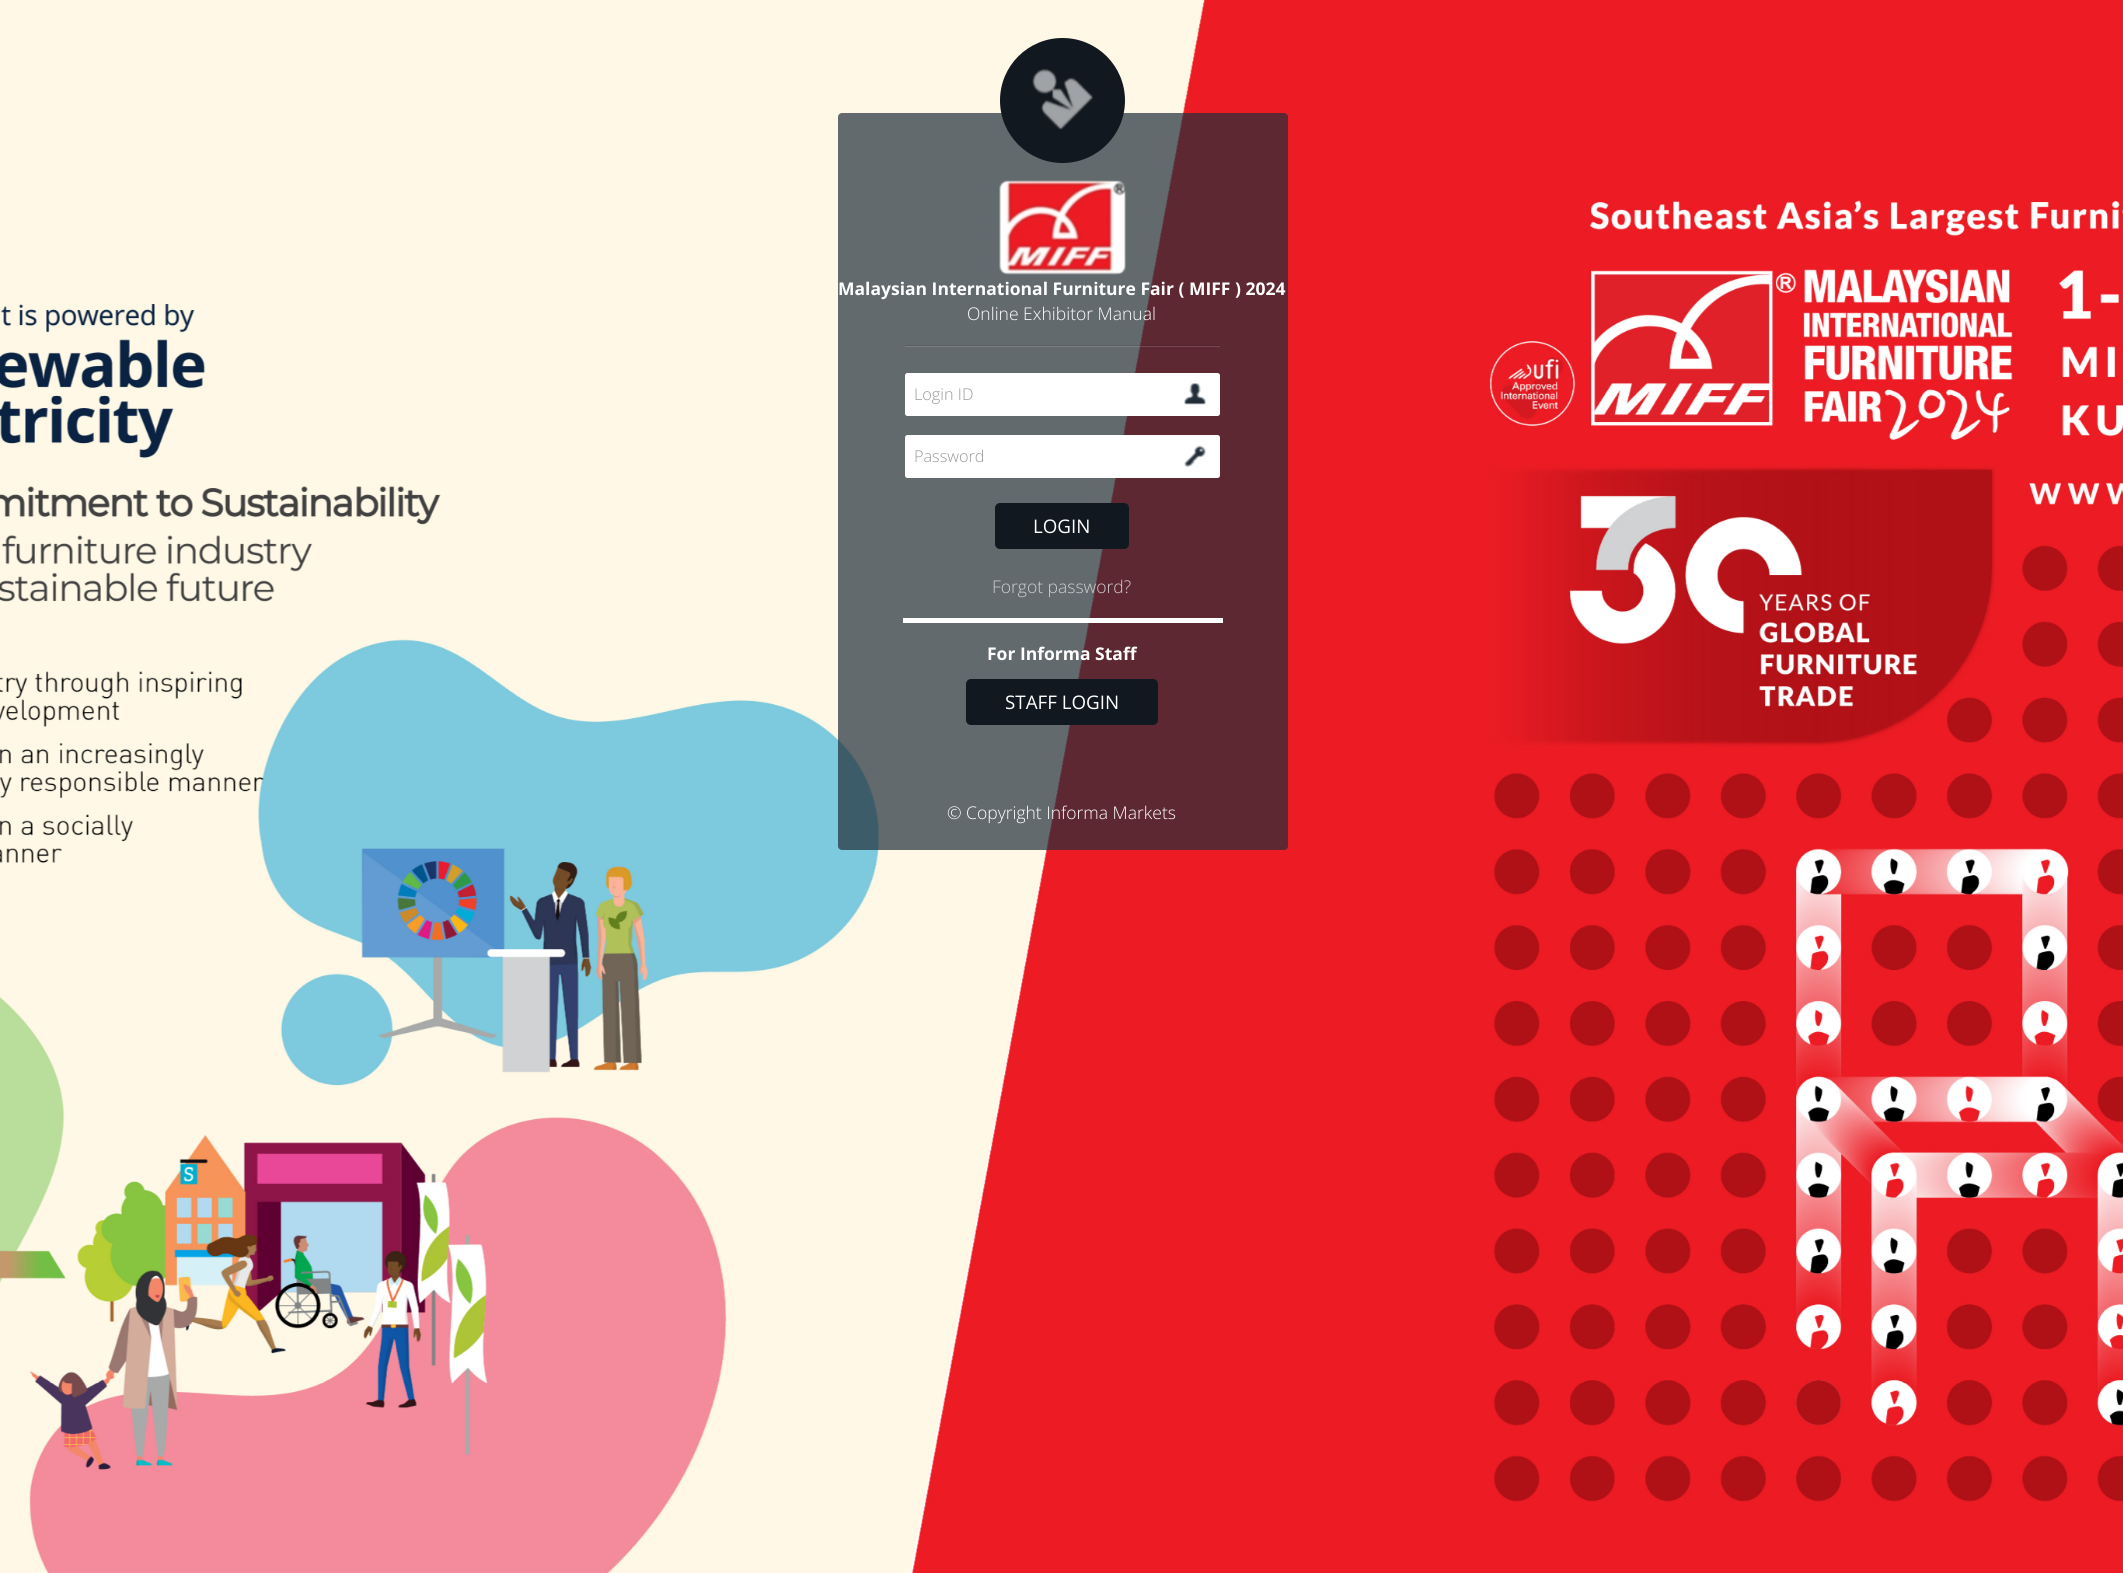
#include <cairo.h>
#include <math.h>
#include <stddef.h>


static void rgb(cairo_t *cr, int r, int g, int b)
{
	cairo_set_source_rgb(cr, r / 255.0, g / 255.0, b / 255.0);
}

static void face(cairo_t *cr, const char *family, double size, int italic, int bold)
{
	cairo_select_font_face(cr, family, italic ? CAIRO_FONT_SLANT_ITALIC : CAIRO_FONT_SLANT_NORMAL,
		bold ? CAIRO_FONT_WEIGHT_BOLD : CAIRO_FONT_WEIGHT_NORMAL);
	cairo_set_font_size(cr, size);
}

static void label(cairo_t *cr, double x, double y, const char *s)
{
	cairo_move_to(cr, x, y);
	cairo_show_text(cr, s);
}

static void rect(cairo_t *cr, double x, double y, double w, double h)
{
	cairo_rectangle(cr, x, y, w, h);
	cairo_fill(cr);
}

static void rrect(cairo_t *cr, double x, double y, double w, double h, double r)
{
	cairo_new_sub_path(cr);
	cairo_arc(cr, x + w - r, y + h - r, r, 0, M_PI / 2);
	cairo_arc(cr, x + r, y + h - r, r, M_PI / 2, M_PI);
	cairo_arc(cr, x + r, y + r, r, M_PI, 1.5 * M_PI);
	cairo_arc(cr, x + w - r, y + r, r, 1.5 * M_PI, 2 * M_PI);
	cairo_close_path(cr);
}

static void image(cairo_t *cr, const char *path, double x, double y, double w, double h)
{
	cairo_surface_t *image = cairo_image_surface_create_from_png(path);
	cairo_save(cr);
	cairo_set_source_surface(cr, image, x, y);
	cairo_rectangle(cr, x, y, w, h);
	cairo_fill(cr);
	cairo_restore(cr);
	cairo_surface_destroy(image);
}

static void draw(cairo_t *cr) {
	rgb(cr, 255, 255, 255);
	cairo_paint(cr);
	image(cr, "image0.png", 0, 0, 2123, 1573);
	cairo_set_source_rgba(cr, 0.133, 0.18, 0.227, 0.7);
	rrect(cr, 838, 113, 450, 737, 4);
	cairo_fill(cr);
	rgb(cr, 18, 24, 31);
	cairo_arc(cr, 1062.5, 100.5, 62.5, 0, 2 * M_PI);
	cairo_fill(cr);
	image(cr, "image1.png", 1032, 68, 61, 62);
	image(cr, "image2.png", 999, 180, 127, 95);
	face(cr, "Open Sans", 17.5, 0, 1);
	rgb(cr, 255, 255, 255);
	label(cr, 838, 295, "Malaysian International Furniture Fair ( MIFF ) 2024");
	face(cr, "Open Sans Light", 17.5, 0, 0);
	label(cr, 967, 320, "Online Exhibitor Manual");
	cairo_set_source_rgba(cr, 0, 0, 0, 0.13);
	rect(cr, 905, 345, 315, 1);
	cairo_set_source_rgba(cr, 1, 1, 1, 0.15);
	rect(cr, 905, 346, 315, 1);
	rgb(cr, 255, 255, 255);
	rrect(cr, 905, 373, 315, 43, 2.5);
	cairo_fill(cr);
	image(cr, "image3.png", 1184, 383, 22, 22);
	face(cr, "Open Sans Light", 16.25, 0, 0);
	rgb(cr, 153, 153, 153);
	label(cr, 914, 400, "Login ID");
	rgb(cr, 255, 255, 255);
	rrect(cr, 905, 435, 315, 43, 2.5);
	cairo_fill(cr);
	image(cr, "image4.png", 1184, 445, 22, 22);
	rgb(cr, 153, 153, 153);
	label(cr, 914, 462, "Password");
	rgb(cr, 18, 24, 31);
	rrect(cr, 995, 503, 134, 46, 5);
	cairo_fill(cr);
	face(cr, "Open Sans", 18.75, 0, 0);
	rgb(cr, 255, 255, 255);
	label(cr, 1033, 533, "LOGIN");
	face(cr, "Open Sans Light", 17.5, 0, 0);
	rgb(cr, 208, 205, 207);
	label(cr, 992, 593, "Forgot password?");
	rgb(cr, 255, 255, 255);
	rect(cr, 903, 618, 320, 5);
	face(cr, "Open Sans", 17.5, 0, 1);
	label(cr, 987, 660, "For Informa Staff");
	rgb(cr, 18, 24, 31);
	rrect(cr, 966, 679, 192, 46, 5);
	cairo_fill(cr);
	face(cr, "Open Sans", 18.75, 0, 0);
	rgb(cr, 255, 255, 255);
	label(cr, 1005, 709, "STAFF LOGIN");
	face(cr, "Open Sans Light", 17.5, 0, 0);
	label(cr, 947, 819, "© Copyright Informa Markets");
}

int main(void) {
	cairo_surface_t *surface = cairo_image_surface_create(CAIRO_FORMAT_RGB24, 2123, 1573);
	cairo_t *cr = cairo_create(surface);
	cairo_font_options_t *options = cairo_font_options_create();
	cairo_font_options_set_hint_metrics(options, CAIRO_HINT_METRICS_OFF);
	cairo_font_options_set_hint_style(options, CAIRO_HINT_STYLE_NONE);
	cairo_set_font_options(cr, options);
	cairo_set_miter_limit(cr, 4);
	draw(cr);
	cairo_surface_write_to_png(surface, "render.png");
	cairo_font_options_destroy(options);
	cairo_destroy(cr);
	cairo_surface_destroy(surface);
	return 0;
}
